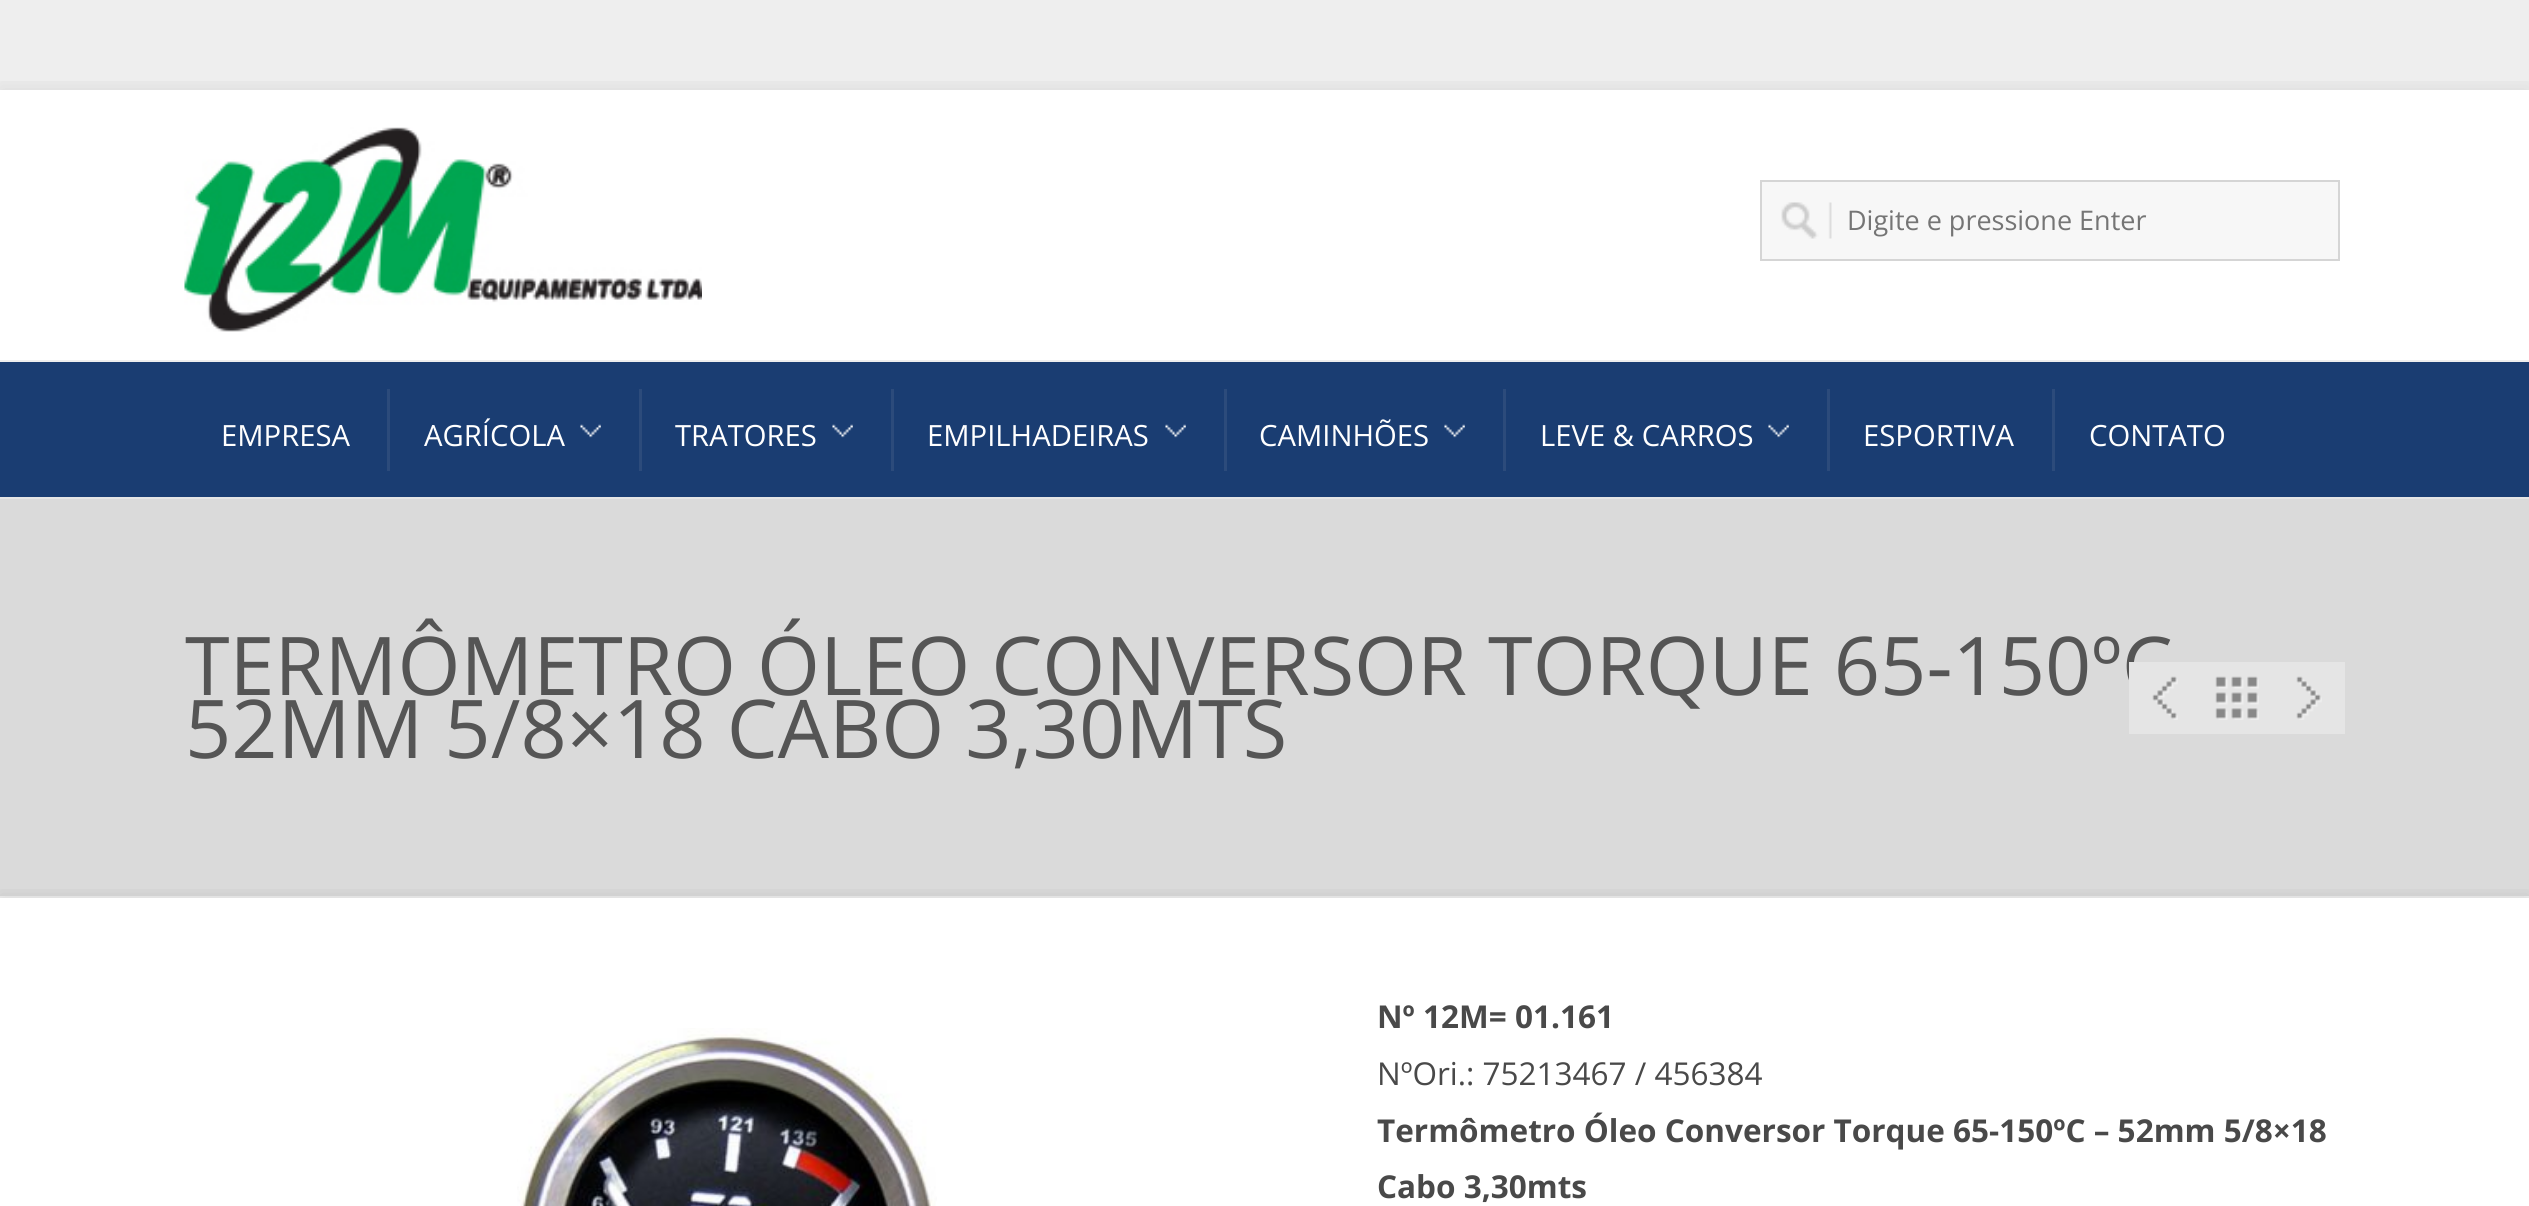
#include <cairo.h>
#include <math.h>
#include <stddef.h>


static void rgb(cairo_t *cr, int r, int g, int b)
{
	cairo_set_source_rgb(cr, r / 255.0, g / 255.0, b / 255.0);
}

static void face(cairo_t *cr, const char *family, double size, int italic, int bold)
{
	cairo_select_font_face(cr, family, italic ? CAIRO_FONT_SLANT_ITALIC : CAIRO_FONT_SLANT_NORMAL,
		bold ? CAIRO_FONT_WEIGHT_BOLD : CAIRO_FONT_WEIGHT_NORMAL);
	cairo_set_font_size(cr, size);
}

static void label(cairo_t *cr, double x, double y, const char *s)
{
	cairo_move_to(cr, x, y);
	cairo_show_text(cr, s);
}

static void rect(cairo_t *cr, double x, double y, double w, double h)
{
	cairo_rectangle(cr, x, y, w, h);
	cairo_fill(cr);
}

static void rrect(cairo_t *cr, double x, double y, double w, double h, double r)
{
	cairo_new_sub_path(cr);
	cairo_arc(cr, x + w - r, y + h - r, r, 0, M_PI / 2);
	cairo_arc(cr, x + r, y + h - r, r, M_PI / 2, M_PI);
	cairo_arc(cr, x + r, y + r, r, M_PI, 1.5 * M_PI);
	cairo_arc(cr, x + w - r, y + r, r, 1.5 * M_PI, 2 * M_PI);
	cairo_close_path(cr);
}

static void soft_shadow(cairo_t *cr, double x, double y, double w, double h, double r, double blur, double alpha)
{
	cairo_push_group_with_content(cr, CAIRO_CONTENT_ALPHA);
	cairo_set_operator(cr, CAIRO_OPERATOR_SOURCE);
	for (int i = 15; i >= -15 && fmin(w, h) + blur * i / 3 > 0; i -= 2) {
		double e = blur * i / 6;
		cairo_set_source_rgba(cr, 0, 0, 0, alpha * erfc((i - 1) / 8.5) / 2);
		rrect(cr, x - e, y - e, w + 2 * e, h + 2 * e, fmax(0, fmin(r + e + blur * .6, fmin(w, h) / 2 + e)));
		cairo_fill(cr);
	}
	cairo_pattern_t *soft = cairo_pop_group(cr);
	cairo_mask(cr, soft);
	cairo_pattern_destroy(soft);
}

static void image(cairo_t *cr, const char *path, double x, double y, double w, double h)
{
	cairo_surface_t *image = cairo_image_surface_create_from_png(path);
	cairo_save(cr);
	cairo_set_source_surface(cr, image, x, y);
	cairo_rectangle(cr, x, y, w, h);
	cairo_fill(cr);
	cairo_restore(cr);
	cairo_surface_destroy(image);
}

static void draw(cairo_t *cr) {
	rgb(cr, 255, 255, 255);
	cairo_paint(cr);
	rgb(cr, 238, 238, 238);
	rect(cr, 0, 0, 2529, 90);
	cairo_save(cr);
	cairo_rectangle(cr, 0, 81, 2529, 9);
	cairo_clip(cr);
	rgb(cr, 0, 0, 0);
	soft_shadow(cr, 0, 90, 2529, 407, 0, 11, 0.1);
	cairo_restore(cr);
	image(cr, "image0.png", 184, 127, 518, 205);
	rgb(cr, 247, 247, 247);
	rect(cr, 1762, 182, 576, 77);
	image(cr, "image1.png", 1781, 202, 51, 37);
	cairo_rectangle(cr, 1761, 181, 578, 79);
	rgb(cr, 213, 213, 213);
	cairo_stroke(cr);
	face(cr, "Open Sans", 27, 0, 0);
	rgb(cr, 117, 117, 117);
	label(cr, 1847, 230, "Digite e pressione Enter");
	rgb(cr, 26, 61, 114);
	rect(cr, 0, 362, 2529, 135);
	rgb(cr, 238, 238, 238);
	rect(cr, 0, 360, 2529, 2);
	face(cr, "Open Sans", 29.25, 0, 0);
	rgb(cr, 255, 255, 255);
	label(cr, 221, 446, "EMPRESA");
	rgb(cr, 44, 75, 123);
	rect(cr, 387, 389, 3, 82);
	image(cr, "image2.png", 580, 424, 21, 14);
	rgb(cr, 255, 255, 255);
	label(cr, 424, 446, "AGRÍCOLA");
	rgb(cr, 44, 75, 123);
	rect(cr, 639, 389, 3, 82);
	image(cr, "image2.png", 832, 424, 21, 14);
	rgb(cr, 255, 255, 255);
	label(cr, 675, 446, "TRATORES");
	rgb(cr, 44, 75, 123);
	rect(cr, 891, 389, 3, 82);
	image(cr, "image2.png", 1165, 424, 21, 14);
	rgb(cr, 255, 255, 255);
	label(cr, 927, 446, "EMPILHADEIRAS");
	rgb(cr, 44, 75, 123);
	rect(cr, 1224, 389, 3, 82);
	image(cr, "image3.png", 1444, 424, 21, 14);
	rgb(cr, 255, 255, 255);
	label(cr, 1259, 446, "CAMINHÕES");
	rgb(cr, 44, 75, 123);
	rect(cr, 1503, 389, 3, 82);
	image(cr, "image2.png", 1768, 424, 21, 14);
	rgb(cr, 255, 255, 255);
	label(cr, 1540, 446, "LEVE & CARROS");
	rgb(cr, 44, 75, 123);
	rect(cr, 1827, 389, 3, 82);
	rgb(cr, 255, 255, 255);
	label(cr, 1863, 446, "ESPORTIVA");
	rgb(cr, 44, 75, 123);
	rect(cr, 2052, 389, 3, 82);
	rgb(cr, 255, 255, 255);
	label(cr, 2089, 446, "CONTATO");
	rgb(cr, 218, 218, 218);
	rect(cr, 0, 499, 2529, 397);
	rgb(cr, 229, 229, 229);
	rect(cr, 0, 497, 2529, 2);
	rgb(cr, 238, 238, 238);
	rect(cr, 0, 896, 2529, 2);
	face(cr, "Open Sans", 81, 0, 0);
	rgb(cr, 85, 85, 85);
	label(cr, 185, 695, "TERMÔMETRO ÓLEO CONVERSOR TORQUE 65-150ºC");
	label(cr, 185, 758, "52MM 5/8×18 CABO 3,30MTS");
	rgb(cr, 229, 229, 229);
	rect(cr, 2129, 662, 216, 72);
	image(cr, "image4.png", 2152, 676, 26, 44);
	image(cr, "image5.png", 2215, 676, 44, 44);
	image(cr, "image6.png", 2296, 676, 26, 44);
	cairo_save(cr);
	cairo_rectangle(cr, 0, 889, 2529, 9);
	cairo_clip(cr);
	rgb(cr, 0, 0, 0);
	soft_shadow(cr, 0, 898, 2529, 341, 0, 11, 0.1);
	cairo_restore(cr);
	image(cr, "image7.png", 517, 1028, 420, 178);
	face(cr, "Open Sans", 31.5, 0, 1);
	rgb(cr, 73, 73, 73);
	label(cr, 1377, 1028, "Nº 12M= 01.161");
	face(cr, "Open Sans", 31.5, 0, 0);
	label(cr, 1377, 1085, "NºOri.: 75213467 / 456384");
	face(cr, "Open Sans", 31.5, 0, 1);
	label(cr, 1377, 1142, "Termômetro Óleo Conversor Torque 65-150ºC – 52mm 5/8×18");
	label(cr, 1377, 1198, "Cabo 3,30mts");
}

int main(void) {
	cairo_surface_t *surface = cairo_image_surface_create(CAIRO_FORMAT_RGB24, 2529, 1206);
	cairo_t *cr = cairo_create(surface);
	cairo_font_options_t *options = cairo_font_options_create();
	cairo_font_options_set_hint_metrics(options, CAIRO_HINT_METRICS_OFF);
	cairo_font_options_set_hint_style(options, CAIRO_HINT_STYLE_NONE);
	cairo_set_font_options(cr, options);
	cairo_set_miter_limit(cr, 4);
	draw(cr);
	cairo_surface_write_to_png(surface, "render.png");
	cairo_font_options_destroy(options);
	cairo_destroy(cr);
	cairo_surface_destroy(surface);
	return 0;
}
